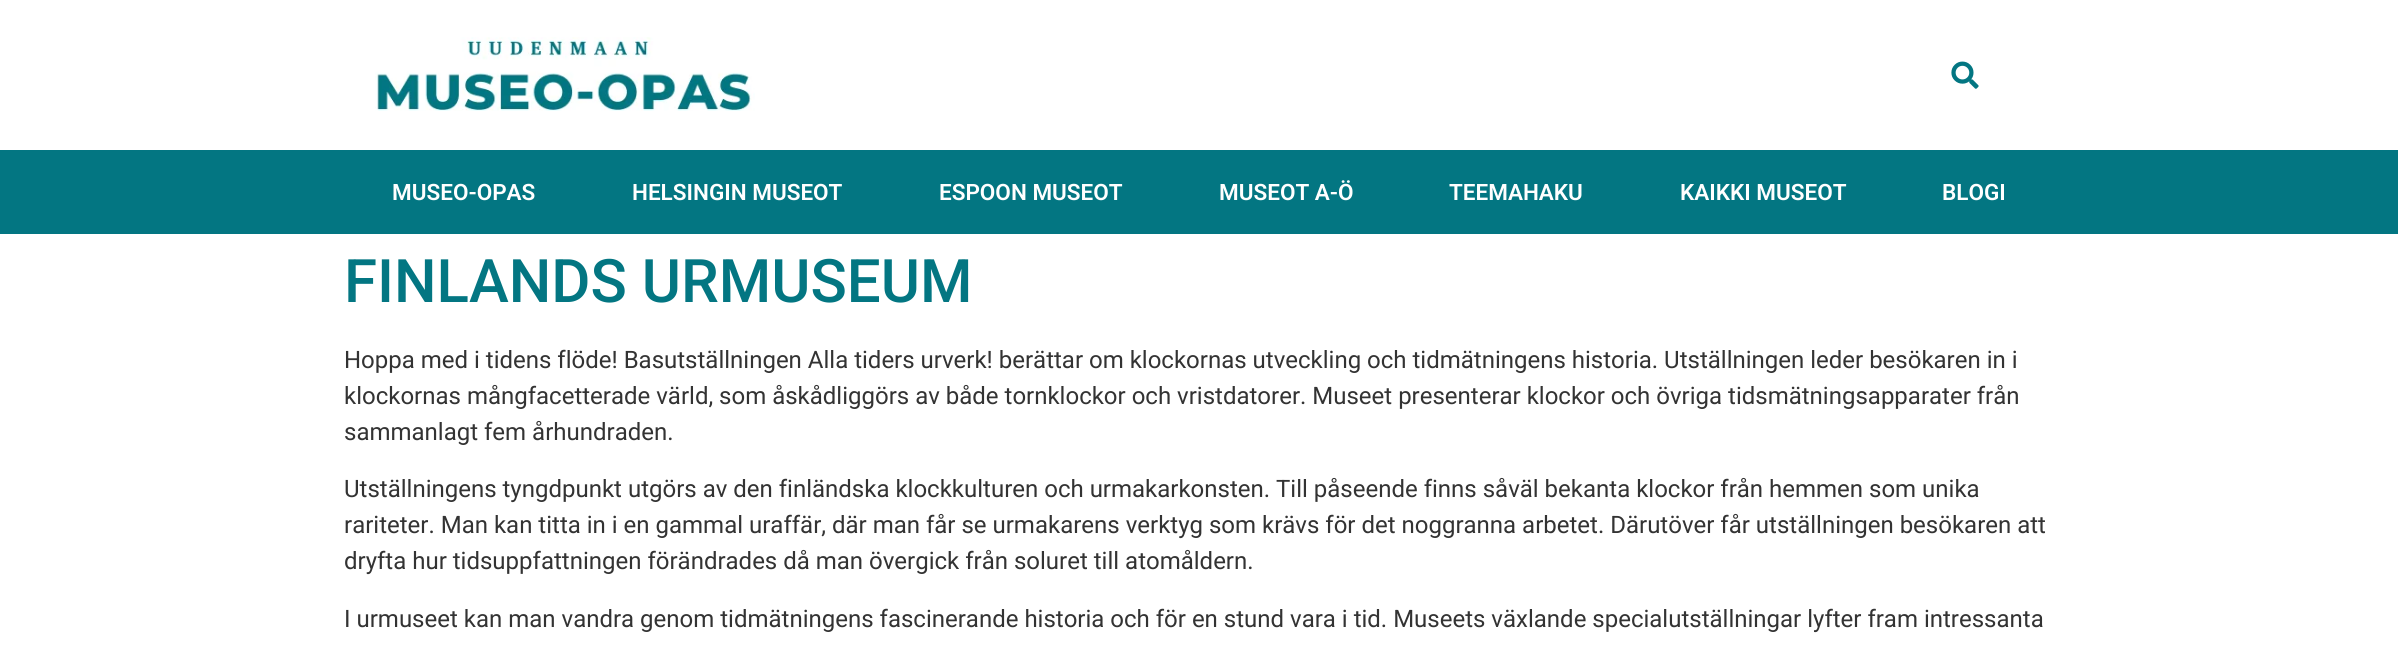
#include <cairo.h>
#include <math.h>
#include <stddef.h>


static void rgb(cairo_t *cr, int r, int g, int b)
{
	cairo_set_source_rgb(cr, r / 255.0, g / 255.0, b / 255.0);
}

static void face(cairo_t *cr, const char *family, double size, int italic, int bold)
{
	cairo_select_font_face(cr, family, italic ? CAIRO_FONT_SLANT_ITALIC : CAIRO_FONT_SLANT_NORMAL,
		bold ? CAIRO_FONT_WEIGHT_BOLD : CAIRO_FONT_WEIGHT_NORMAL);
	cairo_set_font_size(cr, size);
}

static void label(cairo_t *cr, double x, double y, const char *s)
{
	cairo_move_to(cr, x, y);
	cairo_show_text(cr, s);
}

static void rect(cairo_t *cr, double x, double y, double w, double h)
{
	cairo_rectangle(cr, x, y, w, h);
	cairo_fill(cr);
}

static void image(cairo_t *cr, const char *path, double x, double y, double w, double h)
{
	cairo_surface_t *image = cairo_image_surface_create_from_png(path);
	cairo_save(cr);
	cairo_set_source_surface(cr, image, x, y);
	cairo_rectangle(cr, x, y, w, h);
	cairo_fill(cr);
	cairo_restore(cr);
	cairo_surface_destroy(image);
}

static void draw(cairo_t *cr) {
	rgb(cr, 255, 255, 255);
	cairo_paint(cr);
	image(cr, "image0.png", 375, 37, 380, 74);
	image(cr, "image1.png", 1951, 61, 28, 28);
	rgb(cr, 3, 118, 130);
	rect(cr, 0, 150, 2398, 84);
	face(cr, "Roboto SemiBold", 22.5, 0, 0);
	rgb(cr, 255, 255, 255);
	label(cr, 392, 200, "MUSEO-OPAS");
	label(cr, 632, 200, "HELSINGIN MUSEOT");
	label(cr, 939, 200, "ESPOON MUSEOT");
	label(cr, 1219, 200, "MUSEOT A-Ö");
	label(cr, 1449, 200, "TEEMAHAKU");
	label(cr, 1680, 200, "KAIKKI MUSEOT");
	label(cr, 1942, 200, "BLOGI");
	face(cr, "Roboto Medium", 60, 0, 0);
	rgb(cr, 3, 118, 130);
	label(cr, 344, 302, "FINLANDS URMUSEUM");
	face(cr, "Roboto", 24, 0, 0);
	rgb(cr, 51, 51, 51);
	label(cr, 344, 368, "Hoppa med i tidens flöde! Basutställningen Alla tiders urverk! berättar om klockornas utveckling och tidmätningens historia. Utställningen leder besökaren in i");
	label(cr, 344, 404, "klockornas mångfacetterade värld, som åskådliggörs av både tornklockor och vristdatorer. Museet presenterar klockor och övriga tidsmätningsapparater från");
	label(cr, 344, 440, "sammanlagt fem århundraden.");
	label(cr, 344, 497, "Utställningens tyngdpunkt utgörs av den finländska klockkulturen och urmakarkonsten. Till påseende finns såväl bekanta klockor från hemmen som unika");
	label(cr, 344, 533, "rariteter. Man kan titta in i en gammal uraffär, där man får se urmakarens verktyg som krävs för det noggranna arbetet. Därutöver får utställningen besökaren att");
	label(cr, 344, 569, "dryfta hur tidsuppfattningen förändrades då man övergick från soluret till atomåldern.");
	label(cr, 344, 627, "I urmuseet kan man vandra genom tidmätningens fascinerande historia och för en stund vara i tid. Museets växlande specialutställningar lyfter fram intressanta");
}

int main(void) {
	cairo_surface_t *surface = cairo_image_surface_create(CAIRO_FORMAT_RGB24, 2398, 652);
	cairo_t *cr = cairo_create(surface);
	cairo_font_options_t *options = cairo_font_options_create();
	cairo_font_options_set_hint_metrics(options, CAIRO_HINT_METRICS_OFF);
	cairo_font_options_set_hint_style(options, CAIRO_HINT_STYLE_NONE);
	cairo_set_font_options(cr, options);
	cairo_set_miter_limit(cr, 4);
	draw(cr);
	cairo_surface_write_to_png(surface, "render.png");
	cairo_font_options_destroy(options);
	cairo_destroy(cr);
	cairo_surface_destroy(surface);
	return 0;
}
